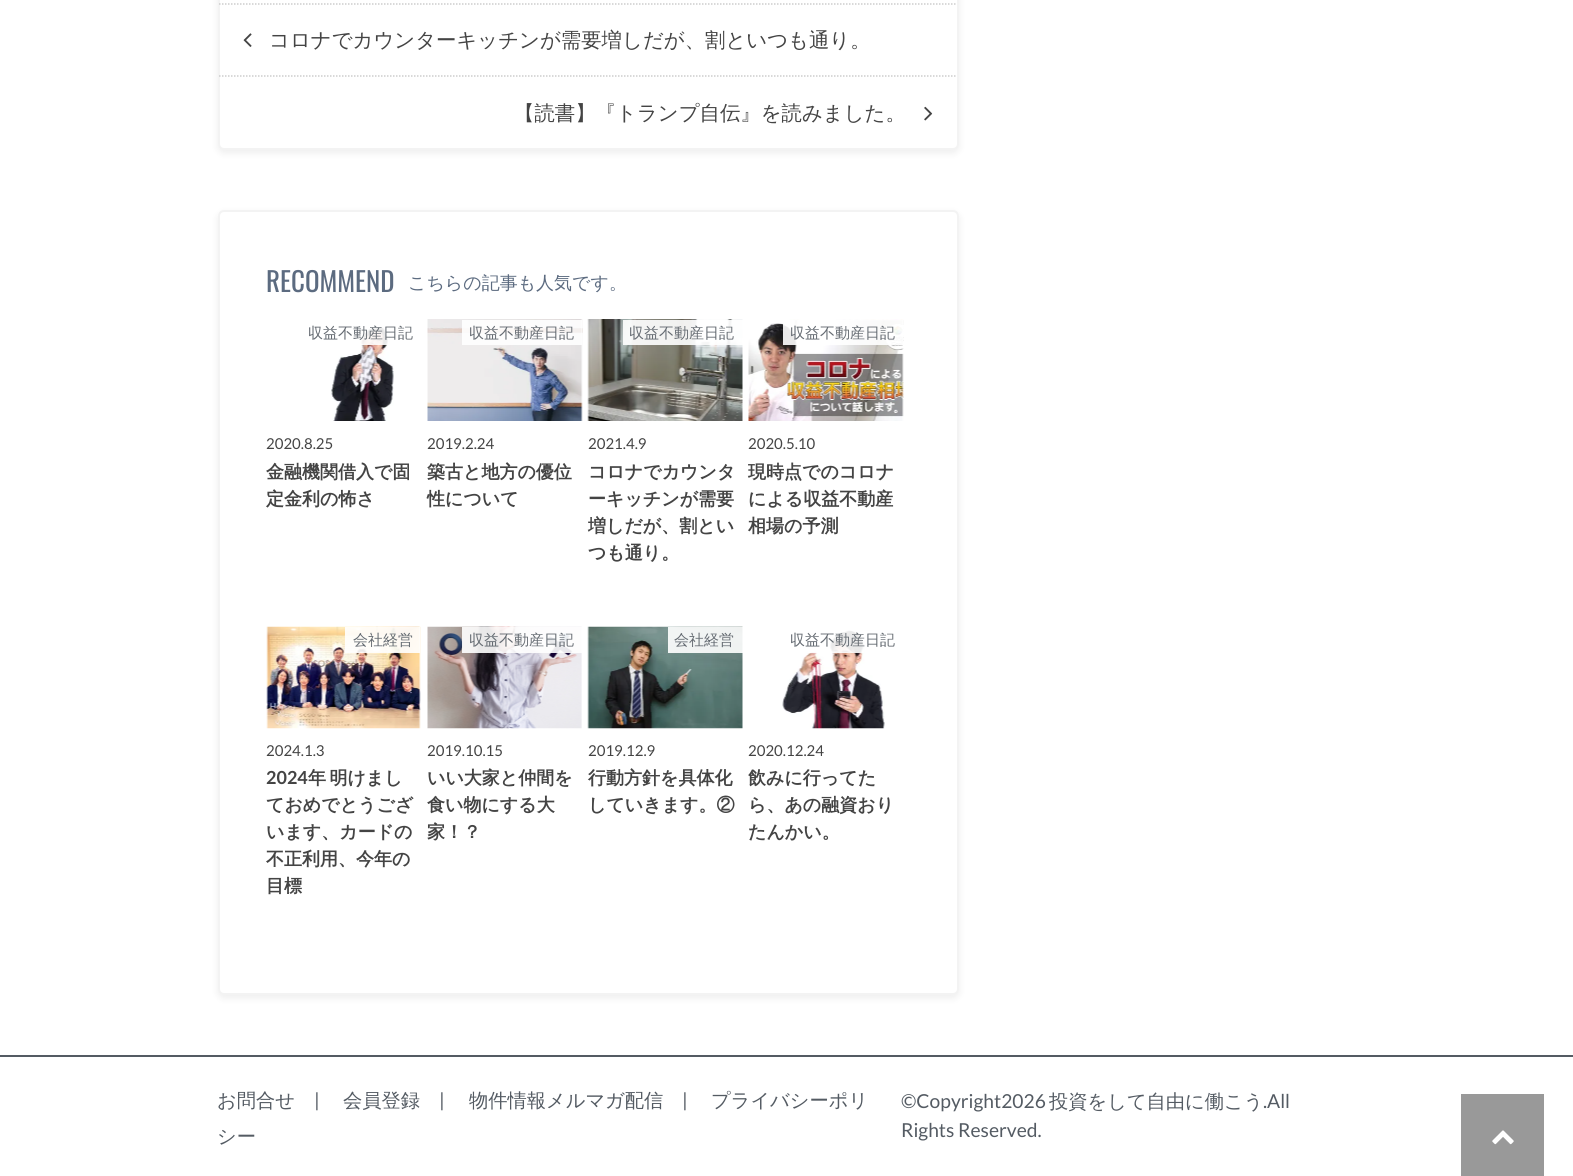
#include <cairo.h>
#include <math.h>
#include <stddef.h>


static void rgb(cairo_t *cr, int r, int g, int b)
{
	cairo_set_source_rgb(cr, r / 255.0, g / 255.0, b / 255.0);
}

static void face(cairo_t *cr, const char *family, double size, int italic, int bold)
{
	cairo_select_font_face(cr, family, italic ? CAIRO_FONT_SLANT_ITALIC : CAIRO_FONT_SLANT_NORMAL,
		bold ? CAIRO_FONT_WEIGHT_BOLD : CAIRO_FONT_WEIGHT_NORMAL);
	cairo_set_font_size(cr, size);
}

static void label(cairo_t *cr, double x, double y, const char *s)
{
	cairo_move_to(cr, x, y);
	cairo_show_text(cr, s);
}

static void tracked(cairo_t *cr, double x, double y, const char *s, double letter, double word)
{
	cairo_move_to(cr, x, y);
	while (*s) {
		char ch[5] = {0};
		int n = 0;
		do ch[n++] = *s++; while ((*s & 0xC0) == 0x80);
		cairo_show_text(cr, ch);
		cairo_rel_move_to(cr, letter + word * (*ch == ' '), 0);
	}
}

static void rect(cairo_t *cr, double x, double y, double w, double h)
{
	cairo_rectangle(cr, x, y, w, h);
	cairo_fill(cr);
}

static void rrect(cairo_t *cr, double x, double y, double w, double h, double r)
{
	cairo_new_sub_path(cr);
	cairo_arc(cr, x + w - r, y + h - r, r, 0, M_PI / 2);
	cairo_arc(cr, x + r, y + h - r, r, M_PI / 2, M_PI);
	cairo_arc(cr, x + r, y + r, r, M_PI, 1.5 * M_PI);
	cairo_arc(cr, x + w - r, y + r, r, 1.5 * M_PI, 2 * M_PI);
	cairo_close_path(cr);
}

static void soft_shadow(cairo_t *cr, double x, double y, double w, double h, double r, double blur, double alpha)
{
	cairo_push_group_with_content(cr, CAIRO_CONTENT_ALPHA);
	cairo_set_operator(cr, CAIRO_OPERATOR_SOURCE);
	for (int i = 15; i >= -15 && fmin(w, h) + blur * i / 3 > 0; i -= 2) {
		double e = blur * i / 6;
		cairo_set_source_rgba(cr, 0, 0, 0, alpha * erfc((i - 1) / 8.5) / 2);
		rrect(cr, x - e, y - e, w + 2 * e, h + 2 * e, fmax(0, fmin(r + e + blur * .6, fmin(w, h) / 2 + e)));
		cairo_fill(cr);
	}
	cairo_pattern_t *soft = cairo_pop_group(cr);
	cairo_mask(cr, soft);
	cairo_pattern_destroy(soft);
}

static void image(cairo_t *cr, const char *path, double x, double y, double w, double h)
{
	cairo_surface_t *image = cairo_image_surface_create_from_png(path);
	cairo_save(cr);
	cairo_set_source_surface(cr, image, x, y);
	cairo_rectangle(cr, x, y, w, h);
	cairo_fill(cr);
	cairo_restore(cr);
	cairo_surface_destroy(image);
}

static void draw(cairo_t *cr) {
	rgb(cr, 255, 255, 255);
	cairo_paint(cr);
	rgb(cr, 138, 138, 138);
	soft_shadow(cr, 218, -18, 741, 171, 6, 4, 0.15);
	rgb(cr, 255, 255, 255);
	rrect(cr, 219, -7, 739, 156, 5);
	cairo_fill_preserve(cr);
	rgb(cr, 243, 243, 243);
	cairo_stroke(cr);
	cairo_new_path(cr);
	cairo_move_to(cr, 219, 4);
	cairo_line_to(cr, 957, 4);
	rgb(cr, 204, 204, 204);
	cairo_set_line_width(cr, 1.5);
	cairo_set_dash(cr, (double[]){1.5, 1.5}, 2, 0);
	cairo_stroke(cr);
	image(cr, "image0.png", 243, 33, 9, 14);
	face(cr, "WenQuanYi Zen Hei Medium", 20.4, 0, 0);
	rgb(cr, 68, 68, 68);
	label(cr, 269, 47, "コロナでカウンターキッチンが需要増しだが、割といつも通り。");
	cairo_new_path(cr);
	cairo_move_to(cr, 219, 76);
	cairo_line_to(cr, 957, 76);
	rgb(cr, 204, 204, 204);
	cairo_stroke(cr);
	rgb(cr, 68, 68, 68);
	label(cr, 514, 120, "【読書】『トランプ自伝』を読みました。");
	image(cr, "image1.png", 924, 106, 9, 15);
	rgb(cr, 138, 138, 138);
	soft_shadow(cr, 218, 213, 741, 785, 6, 4, 0.15);
	rgb(cr, 255, 255, 255);
	rrect(cr, 219, 211, 739, 783, 5);
	cairo_fill_preserve(cr);
	rgb(cr, 243, 243, 243);
	cairo_set_line_width(cr, 2);
	cairo_set_dash(cr, NULL, 0, 0);
	cairo_stroke(cr);
	face(cr, "Oswald", 27, 0, 0);
	rgb(cr, 92, 107, 128);
	label(cr, 266, 292, "RECOMMEND");
	face(cr, "WenQuanYi Zen Hei Medium", 18, 0, 0);
	label(cr, 408, 289, "こちらの記事も人気です。");
	image(cr, "image2.png", 331, 325, 63, 96);
	cairo_set_source_rgba(cr, 1, 1, 1, 0.9);
	rect(cr, 360, 325, 29, 20);
	face(cr, "WenQuanYi Zen Hei Medium", 15, 0, 0);
	rgb(cr, 101, 107, 114);
	label(cr, 308, 338, "収益不動産日記");
	face(cr, "Lato", 15, 0, 0);
	rgb(cr, 68, 68, 68);
	label(cr, 266, 449, "2020.8.25");
	face(cr, "WenQuanYi Zen Hei", 18, 0, 1);
	label(cr, 266, 478, "金融機関借入で固");
	label(cr, 266, 505, "定金利の怖さ");
	image(cr, "image3.png", 427, 319, 156, 102);
	cairo_set_source_rgba(cr, 1, 1, 1, 0.9);
	rect(cr, 462, 320, 120, 25);
	face(cr, "WenQuanYi Zen Hei Medium", 15, 0, 0);
	rgb(cr, 101, 107, 114);
	label(cr, 469, 338, "収益不動産日記");
	face(cr, "Lato", 15, 0, 0);
	rgb(cr, 68, 68, 68);
	label(cr, 427, 449, "2019.2.24");
	face(cr, "WenQuanYi Zen Hei", 18, 0, 1);
	label(cr, 427, 478, "築古と地方の優位");
	label(cr, 427, 505, "性について");
	image(cr, "image4.png", 587, 319, 156, 102);
	cairo_set_source_rgba(cr, 1, 1, 1, 0.9);
	rect(cr, 623, 320, 120, 25);
	face(cr, "WenQuanYi Zen Hei Medium", 15, 0, 0);
	rgb(cr, 101, 107, 114);
	label(cr, 629, 338, "収益不動産日記");
	face(cr, "Lato", 15, 0, 0);
	rgb(cr, 68, 68, 68);
	label(cr, 588, 449, "2021.4.9");
	face(cr, "WenQuanYi Zen Hei", 18, 0, 1);
	label(cr, 588, 478, "コロナでカウンタ");
	label(cr, 588, 505, "ーキッチンが需要");
	label(cr, 588, 532, "増しだが、割とい");
	label(cr, 588, 559, "つも通り。");
	image(cr, "image5.png", 748, 319, 156, 102);
	cairo_set_source_rgba(cr, 1, 1, 1, 0.9);
	rect(cr, 783, 320, 120, 25);
	face(cr, "WenQuanYi Zen Hei Medium", 15, 0, 0);
	rgb(cr, 101, 107, 114);
	label(cr, 790, 338, "収益不動産日記");
	face(cr, "Lato", 15, 0, 0);
	rgb(cr, 68, 68, 68);
	label(cr, 748, 449, "2020.5.10");
	face(cr, "WenQuanYi Zen Hei", 18, 0, 1);
	label(cr, 748, 478, "現時点でのコロナ");
	label(cr, 748, 505, "による収益不動産");
	label(cr, 748, 532, "相場の予測");
	image(cr, "image6.png", 266, 626, 155, 103);
	cairo_set_source_rgba(cr, 1, 1, 1, 0.9);
	rect(cr, 345, 627, 75, 26);
	face(cr, "WenQuanYi Zen Hei Medium", 15, 0, 0);
	rgb(cr, 101, 107, 114);
	label(cr, 353, 645, "会社経営");
	face(cr, "Lato", 15, 0, 0);
	rgb(cr, 68, 68, 68);
	label(cr, 266, 756, "2024.1.3");
	face(cr, "Lato", 18, 0, 1);
	label(cr, 266, 784, "2024");
	face(cr, "WenQuanYi Zen Hei", 18, 0, 1);
	tracked(cr, 308, 784, "年 明けまし", 0, -2);
	label(cr, 266, 811, "ておめでとうござ");
	label(cr, 266, 838, "います、カードの");
	label(cr, 266, 865, "不正利用、今年の");
	label(cr, 266, 892, "目標");
	image(cr, "image7.png", 427, 626, 155, 103);
	cairo_set_source_rgba(cr, 1, 1, 1, 0.9);
	rect(cr, 462, 627, 120, 26);
	face(cr, "WenQuanYi Zen Hei Medium", 15, 0, 0);
	rgb(cr, 101, 107, 114);
	label(cr, 469, 645, "収益不動産日記");
	face(cr, "Lato", 15, 0, 0);
	rgb(cr, 68, 68, 68);
	label(cr, 427, 756, "2019.10.15");
	face(cr, "WenQuanYi Zen Hei", 18, 0, 1);
	label(cr, 427, 784, "いい大家と仲間を");
	label(cr, 427, 811, "食い物にする大");
	label(cr, 427, 838, "家！？");
	image(cr, "image8.png", 587, 626, 156, 103);
	cairo_set_source_rgba(cr, 1, 1, 1, 0.9);
	rect(cr, 668, 627, 75, 26);
	face(cr, "WenQuanYi Zen Hei Medium", 15, 0, 0);
	rgb(cr, 101, 107, 114);
	label(cr, 674, 645, "会社経営");
	face(cr, "Lato", 15, 0, 0);
	rgb(cr, 68, 68, 68);
	label(cr, 588, 756, "2019.12.9");
	face(cr, "WenQuanYi Zen Hei", 18, 0, 1);
	label(cr, 588, 784, "行動方針を具体化");
	label(cr, 588, 811, "していきます。②");
	image(cr, "image9.png", 782, 630, 103, 99);
	cairo_set_source_rgba(cr, 1, 1, 1, 0.9);
	rect(cr, 808, 630, 56, 23);
	face(cr, "WenQuanYi Zen Hei Medium", 15, 0, 0);
	rgb(cr, 101, 107, 114);
	label(cr, 790, 645, "収益不動産日記");
	face(cr, "Lato", 15, 0, 0);
	rgb(cr, 68, 68, 68);
	label(cr, 748, 756, "2020.12.24");
	face(cr, "WenQuanYi Zen Hei", 18, 0, 1);
	label(cr, 748, 784, "飲みに行ってた");
	label(cr, 748, 811, "ら、あの融資おり");
	label(cr, 748, 838, "たんかい。");
	rgb(cr, 84, 91, 99);
	rect(cr, 0, 1055, 1573, 2);
	face(cr, "WenQuanYi Zen Hei Medium", 19.25, 0, 0);
	label(cr, 217, 1107, "お問合せ");
	face(cr, "Lato", 19.25, 0, 0);
	label(cr, 314, 1107, "|");
	face(cr, "WenQuanYi Zen Hei Medium", 19.25, 0, 0);
	label(cr, 343, 1107, "会員登録");
	face(cr, "Lato", 19.25, 0, 0);
	label(cr, 439, 1107, "|");
	face(cr, "WenQuanYi Zen Hei Medium", 19.25, 0, 0);
	label(cr, 469, 1107, "物件情報メルマガ配信");
	face(cr, "Lato", 19.25, 0, 0);
	label(cr, 682, 1107, "|");
	face(cr, "WenQuanYi Zen Hei Medium", 19.25, 0, 0);
	label(cr, 711, 1107, "プライバシーポリ");
	label(cr, 217, 1143, "シー");
	face(cr, "Lato", 19.25, 0, 0);
	label(cr, 901, 1108, "©Copyright2026");
	face(cr, "WenQuanYi Zen Hei Medium", 19.25, 0, 0);
	label(cr, 1049, 1108, "投資をして自由に働こう");
	face(cr, "Lato", 19.25, 0, 0);
	label(cr, 1263, 1108, ".All");
	label(cr, 901, 1137, "Rights Reserved.");
	rgb(cr, 153, 153, 153);
	rect(cr, 1461, 1094, 83, 82);
	image(cr, "image10.png", 1492, 1130, 22, 15);
}

int main(void) {
	cairo_surface_t *surface = cairo_image_surface_create(CAIRO_FORMAT_RGB24, 1573, 1176);
	cairo_t *cr = cairo_create(surface);
	cairo_font_options_t *options = cairo_font_options_create();
	cairo_font_options_set_hint_metrics(options, CAIRO_HINT_METRICS_OFF);
	cairo_font_options_set_hint_style(options, CAIRO_HINT_STYLE_NONE);
	cairo_set_font_options(cr, options);
	cairo_set_miter_limit(cr, 4);
	draw(cr);
	cairo_surface_write_to_png(surface, "render.png");
	cairo_font_options_destroy(options);
	cairo_destroy(cr);
	cairo_surface_destroy(surface);
	return 0;
}
